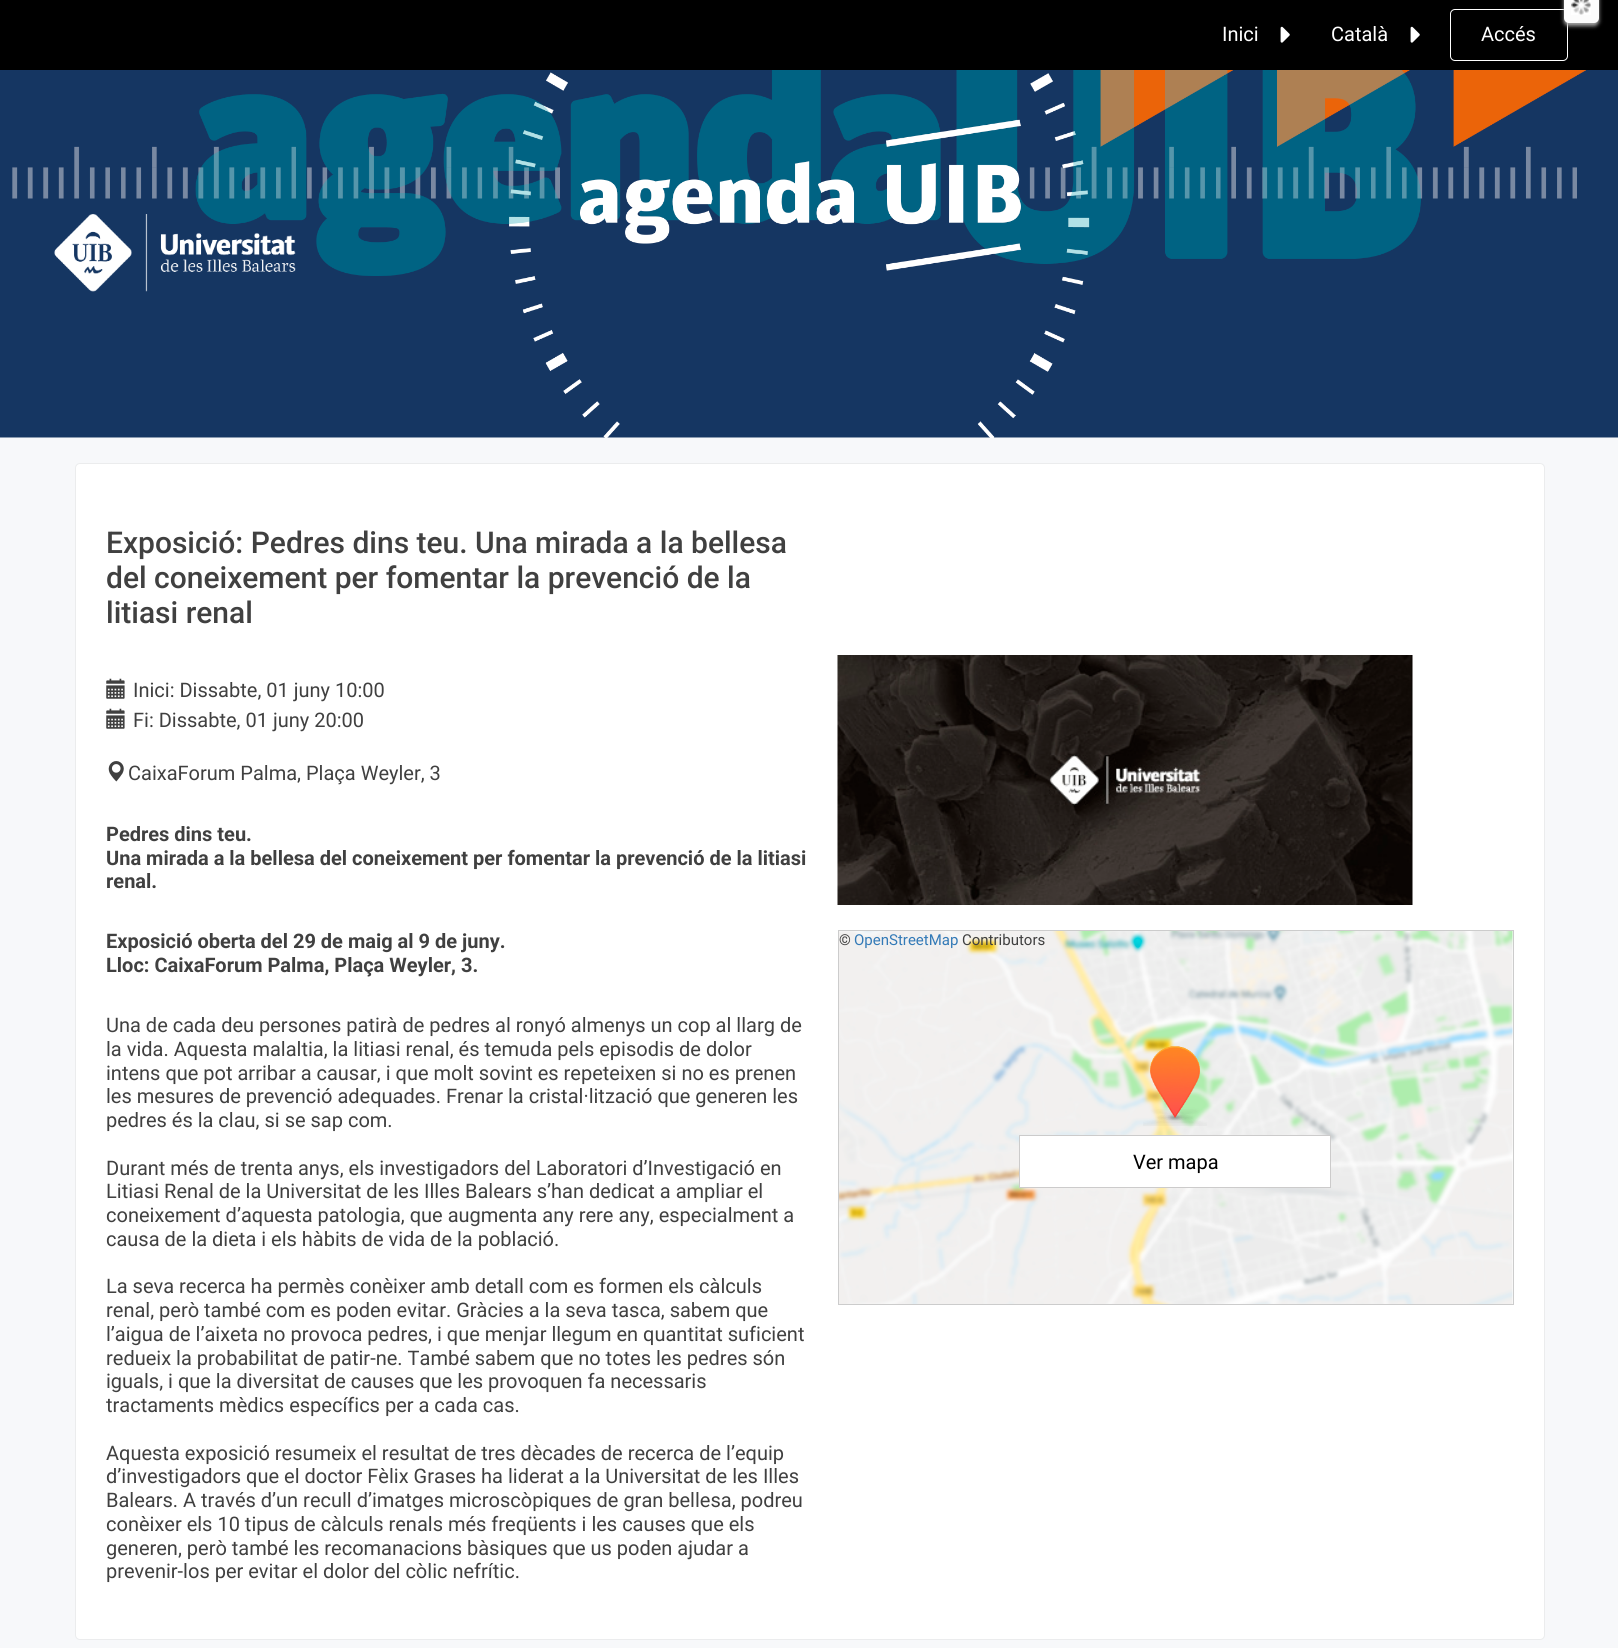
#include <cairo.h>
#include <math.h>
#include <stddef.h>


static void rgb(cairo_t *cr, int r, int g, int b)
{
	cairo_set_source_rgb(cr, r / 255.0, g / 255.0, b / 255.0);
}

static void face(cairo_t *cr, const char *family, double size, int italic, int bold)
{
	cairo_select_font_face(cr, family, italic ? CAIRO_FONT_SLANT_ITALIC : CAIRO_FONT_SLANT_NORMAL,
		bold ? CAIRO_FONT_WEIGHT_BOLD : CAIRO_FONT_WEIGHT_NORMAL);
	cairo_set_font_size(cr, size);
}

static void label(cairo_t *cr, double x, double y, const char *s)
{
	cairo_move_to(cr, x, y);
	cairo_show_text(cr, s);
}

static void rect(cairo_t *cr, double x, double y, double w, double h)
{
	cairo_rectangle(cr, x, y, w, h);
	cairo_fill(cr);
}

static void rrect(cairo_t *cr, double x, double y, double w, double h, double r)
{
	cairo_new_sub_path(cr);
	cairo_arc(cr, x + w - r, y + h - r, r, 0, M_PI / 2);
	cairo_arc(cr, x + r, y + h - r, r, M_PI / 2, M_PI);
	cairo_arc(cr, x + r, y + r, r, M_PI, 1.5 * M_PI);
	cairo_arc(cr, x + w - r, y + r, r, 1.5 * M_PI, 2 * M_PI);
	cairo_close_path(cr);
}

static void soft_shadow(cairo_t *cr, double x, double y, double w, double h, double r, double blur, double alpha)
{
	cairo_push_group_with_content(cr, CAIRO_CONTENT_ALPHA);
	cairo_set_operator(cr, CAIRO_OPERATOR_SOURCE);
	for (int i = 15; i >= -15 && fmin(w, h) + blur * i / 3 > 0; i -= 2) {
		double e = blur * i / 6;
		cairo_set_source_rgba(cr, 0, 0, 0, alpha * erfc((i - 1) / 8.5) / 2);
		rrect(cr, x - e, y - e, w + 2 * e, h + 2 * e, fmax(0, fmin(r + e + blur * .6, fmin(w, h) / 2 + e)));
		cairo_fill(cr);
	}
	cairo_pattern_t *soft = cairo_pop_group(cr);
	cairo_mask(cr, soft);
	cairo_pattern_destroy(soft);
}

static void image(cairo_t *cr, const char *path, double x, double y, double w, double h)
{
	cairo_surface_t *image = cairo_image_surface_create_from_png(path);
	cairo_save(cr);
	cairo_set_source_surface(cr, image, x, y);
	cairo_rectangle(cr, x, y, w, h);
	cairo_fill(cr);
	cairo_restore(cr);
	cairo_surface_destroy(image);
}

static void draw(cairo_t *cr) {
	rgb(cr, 255, 255, 255);
	cairo_paint(cr);
	image(cr, "image0.png", 0, 70, 1618, 368);
	rgb(cr, 0, 0, 0);
	rect(cr, 0, 0, 1618, 70);
	face(cr, "Roboto", 20, 0, 0);
	rgb(cr, 255, 255, 255);
	label(cr, 1222, 41, "Inici");
	image(cr, "image1.png", 1280, 26, 10, 17);
	label(cr, 1331, 41, "Català");
	image(cr, "image1.png", 1410, 26, 10, 17);
	rrect(cr, 1450.5, 9.5, 117, 51, 4.5);
	cairo_set_line_width(cr, 1);
	cairo_stroke(cr);
	label(cr, 1481, 41, "Accés");
	image(cr, "image2.png", 54, 214, 242, 78);
	rgb(cr, 170, 170, 170);
	soft_shadow(cr, 1564, -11, 35, 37, 5, 2, 1);
	rgb(cr, 252, 252, 252);
	rrect(cr, 1564, -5, 35, 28, 5);
	cairo_fill(cr);
	image(cr, "image3.png", 1571, 0, 20, 15);
	rgb(cr, 247, 248, 250);
	rect(cr, 0, 438, 1618, 1210);
	rgb(cr, 255, 255, 255);
	rrect(cr, 75.5, 463.5, 1469, 1176, 4.5);
	cairo_fill_preserve(cr);
	rgb(cr, 235, 236, 237);
	cairo_stroke(cr);
	face(cr, "Roboto Medium", 30, 0, 0);
	rgb(cr, 64, 64, 64);
	label(cr, 106, 553, "Exposició: Pedres dins teu. Una mirada a la bellesa");
	label(cr, 106, 588, "del coneixement per fomentar la prevenció de la");
	label(cr, 106, 623, "litiasi renal");
	image(cr, "image4.png", 106, 678, 19, 21);
	face(cr, "Roboto", 20, 0, 0);
	label(cr, 133, 697, "Inici: Dissabte, 01 juny 10:00");
	image(cr, "image4.png", 106, 708, 19, 21);
	label(cr, 133, 727, "Fi: Dissabte, 01 juny 20:00");
	image(cr, "image5.png", 837, 655, 576, 250);
	image(cr, "image6.png", 108, 761, 16, 21);
	label(cr, 128, 780, "CaixaForum Palma, Plaça Weyler, 3");
	face(cr, "Roboto", 20, 0, 1);
	label(cr, 106, 841, "Pedres dins teu.");
	label(cr, 106, 865, "Una mirada a la bellesa del coneixement per fomentar la prevenció de la litiasi");
	label(cr, 106, 888, "renal.");
	label(cr, 106, 948, "Exposició oberta del 29 de maig al 9 de juny.");
	label(cr, 106, 972, "Lloc: CaixaForum Palma, Plaça Weyler, 3.");
	face(cr, "Roboto", 20, 0, 0);
	label(cr, 106, 1032, "Una de cada deu persones patirà de pedres al ronyó almenys un cop al llarg de");
	label(cr, 106, 1056, "la vida. Aquesta malaltia, la litiasi renal, és temuda pels episodis de dolor");
	label(cr, 106, 1080, "intens que pot arribar a causar, i que molt sovint es repeteixen si no es prenen");
	label(cr, 106, 1103, "les mesures de prevenció adequades. Frenar la cristal·lització que generen les");
	label(cr, 106, 1127, "pedres és la clau, si se sap com.");
	label(cr, 106, 1175, "Durant més de trenta anys, els investigadors del Laboratori d’Investigació en");
	label(cr, 106, 1198, "Litiasi Renal de la Universitat de les Illes Balears s’han dedicat a ampliar el");
	label(cr, 106, 1222, "coneixement d’aquesta patologia, que augmenta any rere any, especialment a");
	label(cr, 106, 1246, "causa de la dieta i els hàbits de vida de la població.");
	label(cr, 106, 1293, "La seva recerca ha permès conèixer amb detall com es formen els càlculs");
	label(cr, 106, 1317, "renal, però també com es poden evitar. Gràcies a la seva tasca, sabem que");
	label(cr, 106, 1341, "l’aigua de l’aixeta no provoca pedres, i que menjar llegum en quantitat suficient");
	label(cr, 106, 1365, "redueix la probabilitat de patir-ne. També sabem que no totes les pedres són");
	label(cr, 106, 1388, "iguals, i que la diversitat de causes que les provoquen fa necessaris");
	label(cr, 106, 1412, "tractaments mèdics específics per a cada cas.");
	label(cr, 106, 1460, "Aquesta exposició resumeix el resultat de tres dècades de recerca de l’equip");
	label(cr, 106, 1483, "d’investigadors que el doctor Fèlix Grases ha liderat a la Universitat de les Illes");
	label(cr, 106, 1507, "Balears. A través d’un recull d’imatges microscòpiques de gran bellesa, podreu");
	label(cr, 106, 1531, "conèixer els 10 tipus de càlculs renals més freqüents i les causes que els");
	label(cr, 106, 1555, "generen, però també les recomanacions bàsiques que us poden ajudar a");
	label(cr, 106, 1578, "prevenir-los per evitar el dolor del còlic nefrític.");
	image(cr, "image7.png", 839, 931, 674, 373);
	cairo_rectangle(cr, 838.5, 930.5, 675, 374);
	rgb(cr, 204, 204, 204);
	cairo_stroke(cr);
	face(cr, "Roboto", 15, 0, 0);
	rgb(cr, 64, 64, 64);
	label(cr, 839, 945, "©");
	rgb(cr, 51, 122, 183);
	label(cr, 854, 945, "OpenStreetMap");
	rgb(cr, 64, 64, 64);
	label(cr, 962, 945, "Contributors");
	image(cr, "image8.png", 1143, 1046, 64, 80);
	rgb(cr, 255, 255, 255);
	cairo_rectangle(cr, 1019.5, 1135.5, 311, 52);
	cairo_fill_preserve(cr);
	rgb(cr, 204, 203, 203);
	cairo_stroke(cr);
	face(cr, "Roboto", 20, 0, 0);
	rgb(cr, 0, 0, 0);
	label(cr, 1133, 1169, "Ver mapa");
}

int main(void) {
	cairo_surface_t *surface = cairo_image_surface_create(CAIRO_FORMAT_RGB24, 1618, 1648);
	cairo_t *cr = cairo_create(surface);
	cairo_font_options_t *options = cairo_font_options_create();
	cairo_font_options_set_hint_metrics(options, CAIRO_HINT_METRICS_OFF);
	cairo_font_options_set_hint_style(options, CAIRO_HINT_STYLE_NONE);
	cairo_set_font_options(cr, options);
	cairo_set_miter_limit(cr, 4);
	draw(cr);
	cairo_surface_write_to_png(surface, "render.png");
	cairo_font_options_destroy(options);
	cairo_destroy(cr);
	cairo_surface_destroy(surface);
	return 0;
}
